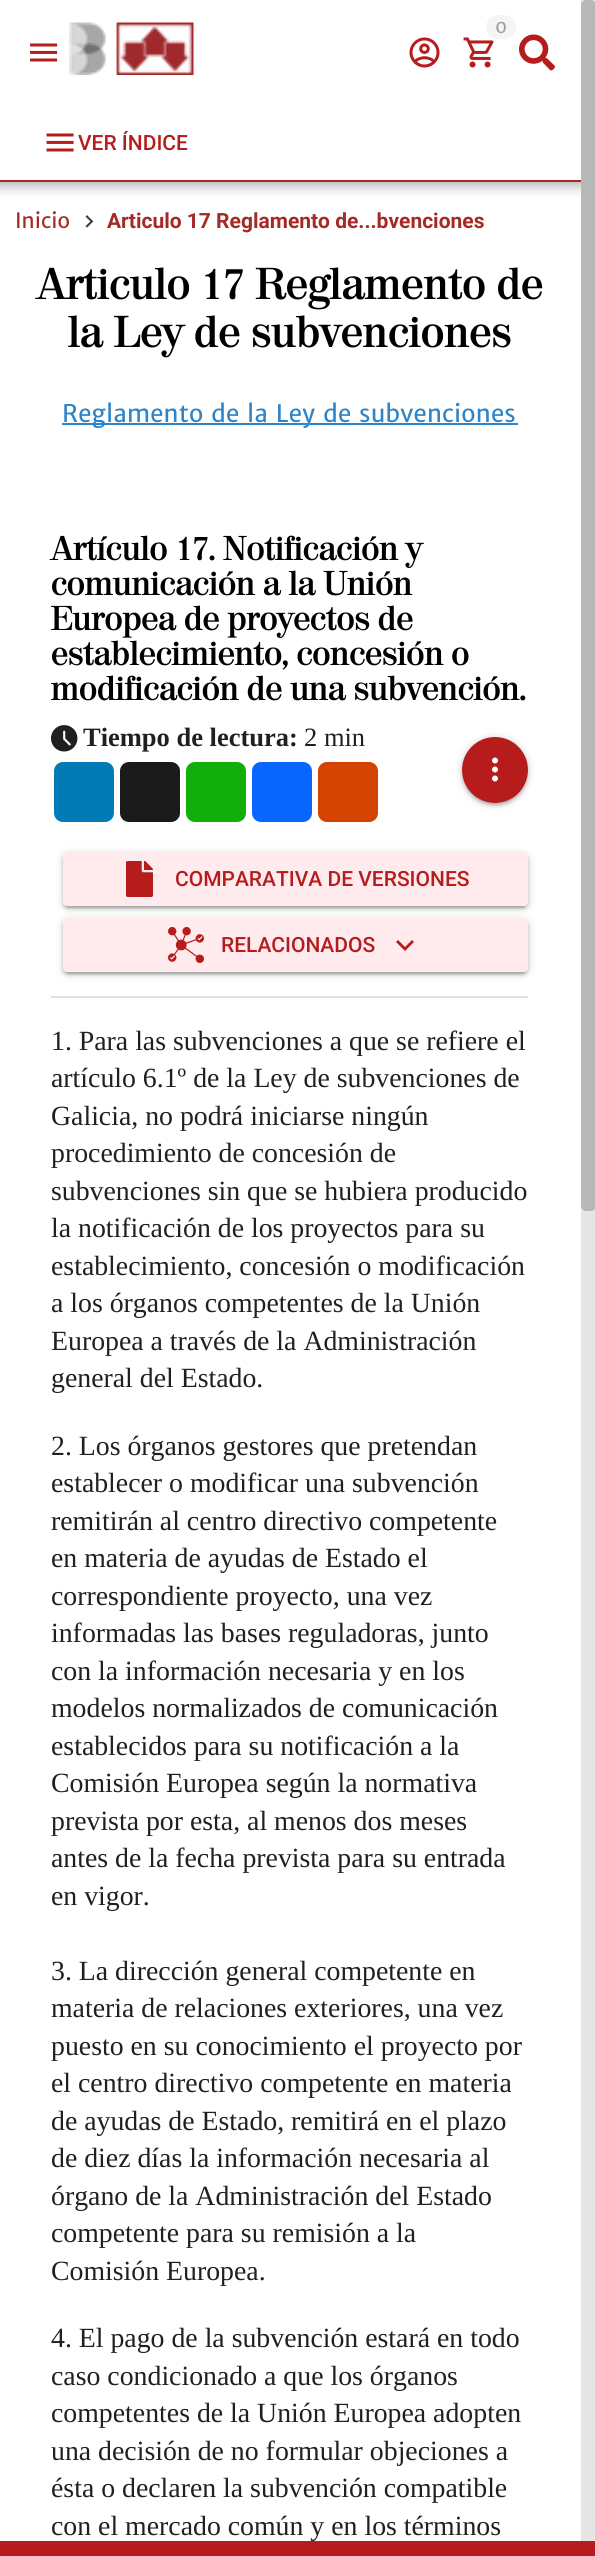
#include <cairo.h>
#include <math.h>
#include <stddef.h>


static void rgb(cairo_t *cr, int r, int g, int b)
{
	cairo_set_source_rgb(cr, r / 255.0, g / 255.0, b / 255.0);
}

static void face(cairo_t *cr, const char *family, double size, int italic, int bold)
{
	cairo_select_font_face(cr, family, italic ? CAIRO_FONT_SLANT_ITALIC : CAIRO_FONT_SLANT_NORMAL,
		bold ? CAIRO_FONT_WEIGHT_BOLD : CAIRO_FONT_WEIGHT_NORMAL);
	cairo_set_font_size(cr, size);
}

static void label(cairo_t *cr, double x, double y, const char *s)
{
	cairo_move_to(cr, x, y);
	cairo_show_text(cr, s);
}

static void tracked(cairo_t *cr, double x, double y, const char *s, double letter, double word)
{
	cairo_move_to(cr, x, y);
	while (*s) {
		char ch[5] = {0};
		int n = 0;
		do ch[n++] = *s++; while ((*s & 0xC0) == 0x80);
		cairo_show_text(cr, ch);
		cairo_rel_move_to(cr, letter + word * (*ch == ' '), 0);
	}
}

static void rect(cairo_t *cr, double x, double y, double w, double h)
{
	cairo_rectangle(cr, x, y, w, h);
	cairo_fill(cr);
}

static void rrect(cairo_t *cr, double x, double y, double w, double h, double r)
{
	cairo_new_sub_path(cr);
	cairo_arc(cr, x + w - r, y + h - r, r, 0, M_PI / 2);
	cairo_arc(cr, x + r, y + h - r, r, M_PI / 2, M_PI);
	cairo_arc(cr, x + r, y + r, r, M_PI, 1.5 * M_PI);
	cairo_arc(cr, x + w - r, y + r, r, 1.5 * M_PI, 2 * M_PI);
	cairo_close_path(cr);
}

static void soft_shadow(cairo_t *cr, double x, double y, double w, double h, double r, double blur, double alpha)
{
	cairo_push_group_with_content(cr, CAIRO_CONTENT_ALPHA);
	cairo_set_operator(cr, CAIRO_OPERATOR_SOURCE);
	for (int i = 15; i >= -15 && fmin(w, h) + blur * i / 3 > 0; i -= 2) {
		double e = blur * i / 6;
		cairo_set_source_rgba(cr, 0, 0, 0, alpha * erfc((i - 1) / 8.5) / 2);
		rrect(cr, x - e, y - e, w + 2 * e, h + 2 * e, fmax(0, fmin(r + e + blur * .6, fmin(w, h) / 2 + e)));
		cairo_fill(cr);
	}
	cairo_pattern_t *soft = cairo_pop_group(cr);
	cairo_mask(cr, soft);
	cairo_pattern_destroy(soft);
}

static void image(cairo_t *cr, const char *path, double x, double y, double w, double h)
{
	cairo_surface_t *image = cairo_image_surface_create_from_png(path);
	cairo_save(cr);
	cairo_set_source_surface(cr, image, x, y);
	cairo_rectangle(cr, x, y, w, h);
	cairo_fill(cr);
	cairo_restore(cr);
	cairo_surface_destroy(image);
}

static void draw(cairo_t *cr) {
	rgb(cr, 255, 255, 255);
	cairo_paint(cr);
	rgb(cr, 230, 230, 230);
	rect(cr, 581, 0, 14, 2541);
	rgb(cr, 165, 41, 37);
	rect(cr, 0, 180, 581, 2);
	image(cr, "image0.png", 30, 43, 28, 19);
	image(cr, "image1.png", 69, 22, 125, 53);
	image(cr, "image2.png", 463, 37, 31, 31);
	rgb(cr, 245, 245, 245);
	rrect(cr, 486, 15, 30, 24, 12);
	cairo_fill(cr);
	image(cr, "image3.png", 409, 37, 31, 31);
	image(cr, "image4.png", 519, 34, 36, 37);
	image(cr, "image5.png", 46, 133, 28, 19);
	rgb(cr, 184, 184, 184);
	rrect(cr, 581, 0, 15, 1211, 5);
	cairo_fill(cr);
	cairo_save(cr);
	cairo_rectangle(cr, 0, 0, 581, 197);
	cairo_clip(cr);
	cairo_set_fill_rule(cr, CAIRO_FILL_RULE_EVEN_ODD);
	cairo_new_path(cr);
	cairo_move_to(cr, 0, 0);
	cairo_line_to(cr, 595, 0);
	cairo_line_to(cr, 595, 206);
	cairo_line_to(cr, 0, 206);
	cairo_close_path(cr);
	cairo_move_to(cr, 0, 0);
	cairo_line_to(cr, 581, 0);
	cairo_line_to(cr, 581, 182);
	cairo_line_to(cr, 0, 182);
	cairo_close_path(cr);
	cairo_clip(cr);
	rgb(cr, 0, 0, 0);
	soft_shadow(cr, 0, 0, 581, 182, 0, 7.5, 0.24);
	cairo_restore(cr);
	cairo_save(cr);
	cairo_rectangle(cr, 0, 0, 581, 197);
	cairo_clip(cr);
	cairo_set_fill_rule(cr, CAIRO_FILL_RULE_EVEN_ODD);
	cairo_new_path(cr);
	cairo_move_to(cr, 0, 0);
	cairo_line_to(cr, 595, 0);
	cairo_line_to(cr, 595, 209);
	cairo_line_to(cr, 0, 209);
	cairo_close_path(cr);
	cairo_move_to(cr, 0, 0);
	cairo_line_to(cr, 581, 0);
	cairo_line_to(cr, 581, 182);
	cairo_line_to(cr, 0, 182);
	cairo_close_path(cr);
	cairo_clip(cr);
	rgb(cr, 0, 0, 0);
	soft_shadow(cr, -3, -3, 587, 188, 0, 7.5, 0.2);
	cairo_restore(cr);
	face(cr, "Merriweather Sans", 18, 0, 0);
	rgb(cr, 158, 158, 158);
	label(cr, 495, 33, "0");
	face(cr, "Roboto Medium", 21, 0, 0);
	rgb(cr, 183, 28, 28);
	label(cr, 78, 150, "VER ÍNDICE");
	face(cr, "Merriweather Sans", 21, 0, 0);
	rgb(cr, 165, 41, 37);
	label(cr, 15, 228, "Inicio");
	image(cr, "image6.png", 85, 215, 9, 13);
	face(cr, "Roboto", 21, 0, 1);
	label(cr, 107, 228, "Articulo 17 Reglamento de...bvenciones");
	face(cr, "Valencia", 43.25, 0, 1);
	rgb(cr, 0, 0, 0);
	label(cr, 37, 299, "Articulo 17 Reglamento de");
	label(cr, 68, 347, "la Ley de subvenciones");
	rgb(cr, 45, 132, 200);
	rect(cr, 62, 423, 456, 2);
	face(cr, "Merriweather Sans", 24, 0, 0);
	tracked(cr, 62, 422, "Reglamento de la Ley de subvenciones", 0.2, 0);
	face(cr, "Valencia", 33.4, 0, 1);
	rgb(cr, 0, 0, 0);
	tracked(cr, 51, 560, "Artículo 17. Notificación y", -0.25, 0);
	tracked(cr, 51, 595, "comunicación a la Unión", -0.25, 0);
	tracked(cr, 51, 630, "Europea de proyectos de", -0.25, 0);
	tracked(cr, 51, 665, "establecimiento, concesión o", -0.25, 0);
	tracked(cr, 51, 700, "modificación de una subvención.", -0.25, 0);
	image(cr, "image7.png", 51, 725, 27, 27);
	face(cr, "Liberation Serif", 26.5, 0, 1);
	rgb(cr, 32, 32, 32);
	label(cr, 83, 746, "Tiempo de lectura:");
	face(cr, "Liberation Serif", 26.5, 0, 0);
	label(cr, 304, 746, "2 min");
	rgb(cr, 0, 123, 181);
	rrect(cr, 54, 762, 60, 60, 9);
	cairo_fill(cr);
	rgb(cr, 26, 26, 26);
	rrect(cr, 120, 762, 60, 60, 9);
	cairo_fill(cr);
	rgb(cr, 18, 175, 10);
	rrect(cr, 186, 762, 60, 60, 9);
	cairo_fill(cr);
	rgb(cr, 8, 102, 255);
	rrect(cr, 252, 762, 60, 60, 9);
	cairo_fill(cr);
	rgb(cr, 212, 67, 0);
	rrect(cr, 318, 762, 60, 60, 9);
	cairo_fill(cr);
	rgb(cr, 183, 28, 28);
	cairo_arc(cr, 495, 770, 33, 0, 2 * M_PI);
	cairo_fill(cr);
	cairo_save(cr);
	cairo_set_fill_rule(cr, CAIRO_FILL_RULE_EVEN_ODD);
	cairo_new_path(cr);
	cairo_move_to(cr, 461, 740);
	cairo_line_to(cr, 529, 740);
	cairo_line_to(cr, 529, 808);
	cairo_line_to(cr, 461, 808);
	cairo_close_path(cr);
	cairo_move_to(cr, 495, 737);
	cairo_curve_to(cr, 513, 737, 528, 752, 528, 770);
	cairo_curve_to(cr, 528, 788, 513, 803, 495, 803);
	cairo_curve_to(cr, 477, 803, 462, 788, 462, 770);
	cairo_curve_to(cr, 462, 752, 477, 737, 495, 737);
	cairo_close_path(cr);
	cairo_clip(cr);
	rgb(cr, 0, 0, 0);
	soft_shadow(cr, 465, 744, 60, 60, 30, 1, 0.12);
	cairo_restore(cr);
	cairo_save(cr);
	cairo_set_fill_rule(cr, CAIRO_FILL_RULE_EVEN_ODD);
	cairo_new_path(cr);
	cairo_move_to(cr, 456, 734);
	cairo_line_to(cr, 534, 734);
	cairo_line_to(cr, 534, 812);
	cairo_line_to(cr, 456, 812);
	cairo_close_path(cr);
	cairo_move_to(cr, 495, 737);
	cairo_curve_to(cr, 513, 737, 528, 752, 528, 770);
	cairo_curve_to(cr, 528, 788, 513, 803, 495, 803);
	cairo_curve_to(cr, 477, 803, 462, 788, 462, 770);
	cairo_curve_to(cr, 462, 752, 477, 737, 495, 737);
	cairo_close_path(cr);
	cairo_clip(cr);
	rgb(cr, 0, 0, 0);
	soft_shadow(cr, 462, 740, 66, 66, 33, 1.5, 0.14);
	cairo_restore(cr);
	cairo_save(cr);
	cairo_set_fill_rule(cr, CAIRO_FILL_RULE_EVEN_ODD);
	cairo_new_path(cr);
	cairo_move_to(cr, 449, 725);
	cairo_line_to(cr, 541, 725);
	cairo_line_to(cr, 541, 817);
	cairo_line_to(cr, 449, 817);
	cairo_close_path(cr);
	cairo_move_to(cr, 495, 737);
	cairo_curve_to(cr, 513, 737, 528, 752, 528, 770);
	cairo_curve_to(cr, 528, 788, 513, 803, 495, 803);
	cairo_curve_to(cr, 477, 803, 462, 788, 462, 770);
	cairo_curve_to(cr, 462, 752, 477, 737, 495, 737);
	cairo_close_path(cr);
	cairo_clip(cr);
	rgb(cr, 0, 0, 0);
	soft_shadow(cr, 462, 738, 66, 66, 33, 4, 0.2);
	cairo_restore(cr);
	image(cr, "image8.png", 492, 757, 6, 25);
	rgb(cr, 255, 235, 238);
	rrect(cr, 63, 852, 465, 54, 5);
	cairo_fill(cr);
	cairo_save(cr);
	cairo_rectangle(cr, 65, 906, 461, 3);
	cairo_clip(cr);
	rgb(cr, 0, 0, 0);
	soft_shadow(cr, 66, 860, 459, 48, 1.5, 1, 0.12);
	cairo_restore(cr);
	cairo_save(cr);
	cairo_set_fill_rule(cr, CAIRO_FILL_RULE_EVEN_ODD);
	cairo_new_path(cr);
	cairo_move_to(cr, 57, 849);
	cairo_line_to(cr, 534, 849);
	cairo_line_to(cr, 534, 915);
	cairo_line_to(cr, 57, 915);
	cairo_close_path(cr);
	cairo_move_to(cr, 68, 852);
	cairo_line_to(cr, 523, 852);
	cairo_curve_to(cr, 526, 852, 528, 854, 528, 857);
	cairo_line_to(cr, 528, 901);
	cairo_curve_to(cr, 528, 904, 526, 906, 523, 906);
	cairo_line_to(cr, 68, 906);
	cairo_curve_to(cr, 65, 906, 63, 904, 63, 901);
	cairo_line_to(cr, 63, 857);
	cairo_curve_to(cr, 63, 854, 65, 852, 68, 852);
	cairo_close_path(cr);
	cairo_clip(cr);
	rgb(cr, 0, 0, 0);
	soft_shadow(cr, 63, 855, 465, 54, 5, 1.5, 0.14);
	cairo_restore(cr);
	cairo_save(cr);
	cairo_set_fill_rule(cr, CAIRO_FILL_RULE_EVEN_ODD);
	cairo_new_path(cr);
	cairo_move_to(cr, 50, 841);
	cairo_line_to(cr, 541, 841);
	cairo_line_to(cr, 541, 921);
	cairo_line_to(cr, 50, 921);
	cairo_close_path(cr);
	cairo_move_to(cr, 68, 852);
	cairo_line_to(cr, 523, 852);
	cairo_curve_to(cr, 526, 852, 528, 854, 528, 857);
	cairo_line_to(cr, 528, 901);
	cairo_curve_to(cr, 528, 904, 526, 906, 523, 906);
	cairo_line_to(cr, 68, 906);
	cairo_curve_to(cr, 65, 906, 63, 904, 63, 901);
	cairo_line_to(cr, 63, 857);
	cairo_curve_to(cr, 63, 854, 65, 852, 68, 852);
	cairo_close_path(cr);
	cairo_clip(cr);
	rgb(cr, 0, 0, 0);
	soft_shadow(cr, 63, 854, 465, 54, 5, 4, 0.2);
	cairo_restore(cr);
	image(cr, "image9.png", 126, 861, 27, 36);
	face(cr, "Roboto Medium", 21, 0, 0);
	rgb(cr, 183, 28, 28);
	label(cr, 175, 886, "COMPARATIVA DE VERSIONES");
	rgb(cr, 255, 235, 238);
	rrect(cr, 63, 918, 465, 54, 5);
	cairo_fill(cr);
	cairo_save(cr);
	cairo_rectangle(cr, 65, 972, 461, 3);
	cairo_clip(cr);
	rgb(cr, 0, 0, 0);
	soft_shadow(cr, 66, 926, 459, 48, 1.5, 1, 0.12);
	cairo_restore(cr);
	cairo_save(cr);
	cairo_set_fill_rule(cr, CAIRO_FILL_RULE_EVEN_ODD);
	cairo_new_path(cr);
	cairo_move_to(cr, 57, 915);
	cairo_line_to(cr, 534, 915);
	cairo_line_to(cr, 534, 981);
	cairo_line_to(cr, 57, 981);
	cairo_close_path(cr);
	cairo_move_to(cr, 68, 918);
	cairo_line_to(cr, 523, 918);
	cairo_curve_to(cr, 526, 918, 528, 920, 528, 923);
	cairo_line_to(cr, 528, 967);
	cairo_curve_to(cr, 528, 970, 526, 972, 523, 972);
	cairo_line_to(cr, 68, 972);
	cairo_curve_to(cr, 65, 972, 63, 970, 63, 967);
	cairo_line_to(cr, 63, 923);
	cairo_curve_to(cr, 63, 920, 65, 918, 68, 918);
	cairo_close_path(cr);
	cairo_clip(cr);
	rgb(cr, 0, 0, 0);
	soft_shadow(cr, 63, 921, 465, 54, 5, 1.5, 0.14);
	cairo_restore(cr);
	cairo_save(cr);
	cairo_set_fill_rule(cr, CAIRO_FILL_RULE_EVEN_ODD);
	cairo_new_path(cr);
	cairo_move_to(cr, 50, 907);
	cairo_line_to(cr, 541, 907);
	cairo_line_to(cr, 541, 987);
	cairo_line_to(cr, 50, 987);
	cairo_close_path(cr);
	cairo_move_to(cr, 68, 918);
	cairo_line_to(cr, 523, 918);
	cairo_curve_to(cr, 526, 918, 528, 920, 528, 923);
	cairo_line_to(cr, 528, 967);
	cairo_curve_to(cr, 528, 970, 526, 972, 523, 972);
	cairo_line_to(cr, 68, 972);
	cairo_curve_to(cr, 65, 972, 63, 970, 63, 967);
	cairo_line_to(cr, 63, 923);
	cairo_curve_to(cr, 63, 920, 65, 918, 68, 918);
	cairo_close_path(cr);
	cairo_clip(cr);
	rgb(cr, 0, 0, 0);
	soft_shadow(cr, 63, 920, 465, 54, 5, 4, 0.2);
	cairo_restore(cr);
	image(cr, "image10.png", 168, 927, 36, 36);
	rgb(cr, 183, 28, 28);
	label(cr, 221, 952, "RELACIONADOS");
	cairo_new_path(cr);
	cairo_move_to(cr, 398, 940);
	cairo_line_to(cr, 405, 947);
	cairo_line_to(cr, 412, 940);
	cairo_line_to(cr, 414, 942);
	cairo_line_to(cr, 405, 951);
	cairo_line_to(cr, 396, 942);
	cairo_close_path(cr);
	cairo_fill(cr);
	rgb(cr, 224, 224, 224);
	rect(cr, 51, 996, 477, 2);
	face(cr, "Liberation Serif", 27.8, 0, 0);
	rgb(cr, 32, 32, 32);
	label(cr, 51, 1050, "1. Para las subvenciones a que se refiere el");
	label(cr, 51, 1087, "artículo 6.1º de la Ley de subvenciones de");
	label(cr, 51, 1125, "Galicia, no podrá iniciarse ningún");
	label(cr, 51, 1162, "procedimiento de concesión de");
	label(cr, 51, 1200, "subvenciones sin que se hubiera producido");
	label(cr, 51, 1237, "la notificación de los proyectos para su");
	label(cr, 51, 1275, "establecimiento, concesión o modificación");
	label(cr, 51, 1312, "a los órganos competentes de la Unión");
	label(cr, 51, 1350, "Europea a través de la Administración");
	label(cr, 51, 1387, "general del Estado.");
	label(cr, 51, 1455, "2. Los órganos gestores que pretendan");
	label(cr, 51, 1492, "establecer o modificar una subvención");
	label(cr, 51, 1530, "remitirán al centro directivo competente");
	label(cr, 51, 1567, "en materia de ayudas de Estado el");
	label(cr, 51, 1605, "correspondiente proyecto, una vez");
	label(cr, 51, 1642, "informadas las bases reguladoras, junto");
	label(cr, 51, 1680, "con la información necesaria y en los");
	label(cr, 51, 1717, "modelos normalizados de comunicación");
	label(cr, 51, 1755, "establecidos para su notificación a la");
	label(cr, 51, 1792, "Comisión Europea según la normativa");
	label(cr, 51, 1830, "prevista por esta, al menos dos meses");
	label(cr, 51, 1867, "antes de la fecha prevista para su entrada");
	label(cr, 51, 1905, "en vigor.");
	label(cr, 51, 1980, "3. La dirección general competente en");
	label(cr, 51, 2017, "materia de relaciones exteriores, una vez");
	label(cr, 51, 2055, "puesto en su conocimiento el proyecto por");
	label(cr, 51, 2092, "el centro directivo competente en materia");
	label(cr, 51, 2130, "de ayudas de Estado, remitirá en el plazo");
	label(cr, 51, 2167, "de diez días la información necesaria al");
	label(cr, 51, 2205, "órgano de la Administración del Estado");
	label(cr, 51, 2242, "competente para su remisión a la");
	label(cr, 51, 2280, "Comisión Europea.");
	label(cr, 51, 2347, "4. El pago de la subvención estará en todo");
	label(cr, 51, 2385, "caso condicionado a que los órganos");
	label(cr, 51, 2422, "competentes de la Unión Europea adopten");
	label(cr, 51, 2460, "una decisión de no formular objeciones a");
	label(cr, 51, 2497, "ésta o declaren la subvención compatible");
	label(cr, 51, 2535, "con el mercado común y en los términos");
	rgb(cr, 183, 28, 28);
	rect(cr, 0, 2541, 595, 15);
}

int main(void) {
	cairo_surface_t *surface = cairo_image_surface_create(CAIRO_FORMAT_RGB24, 595, 2556);
	cairo_t *cr = cairo_create(surface);
	cairo_font_options_t *options = cairo_font_options_create();
	cairo_font_options_set_hint_metrics(options, CAIRO_HINT_METRICS_OFF);
	cairo_font_options_set_hint_style(options, CAIRO_HINT_STYLE_NONE);
	cairo_set_font_options(cr, options);
	cairo_set_miter_limit(cr, 4);
	draw(cr);
	cairo_surface_write_to_png(surface, "render.png");
	cairo_font_options_destroy(options);
	cairo_destroy(cr);
	cairo_surface_destroy(surface);
	return 0;
}
